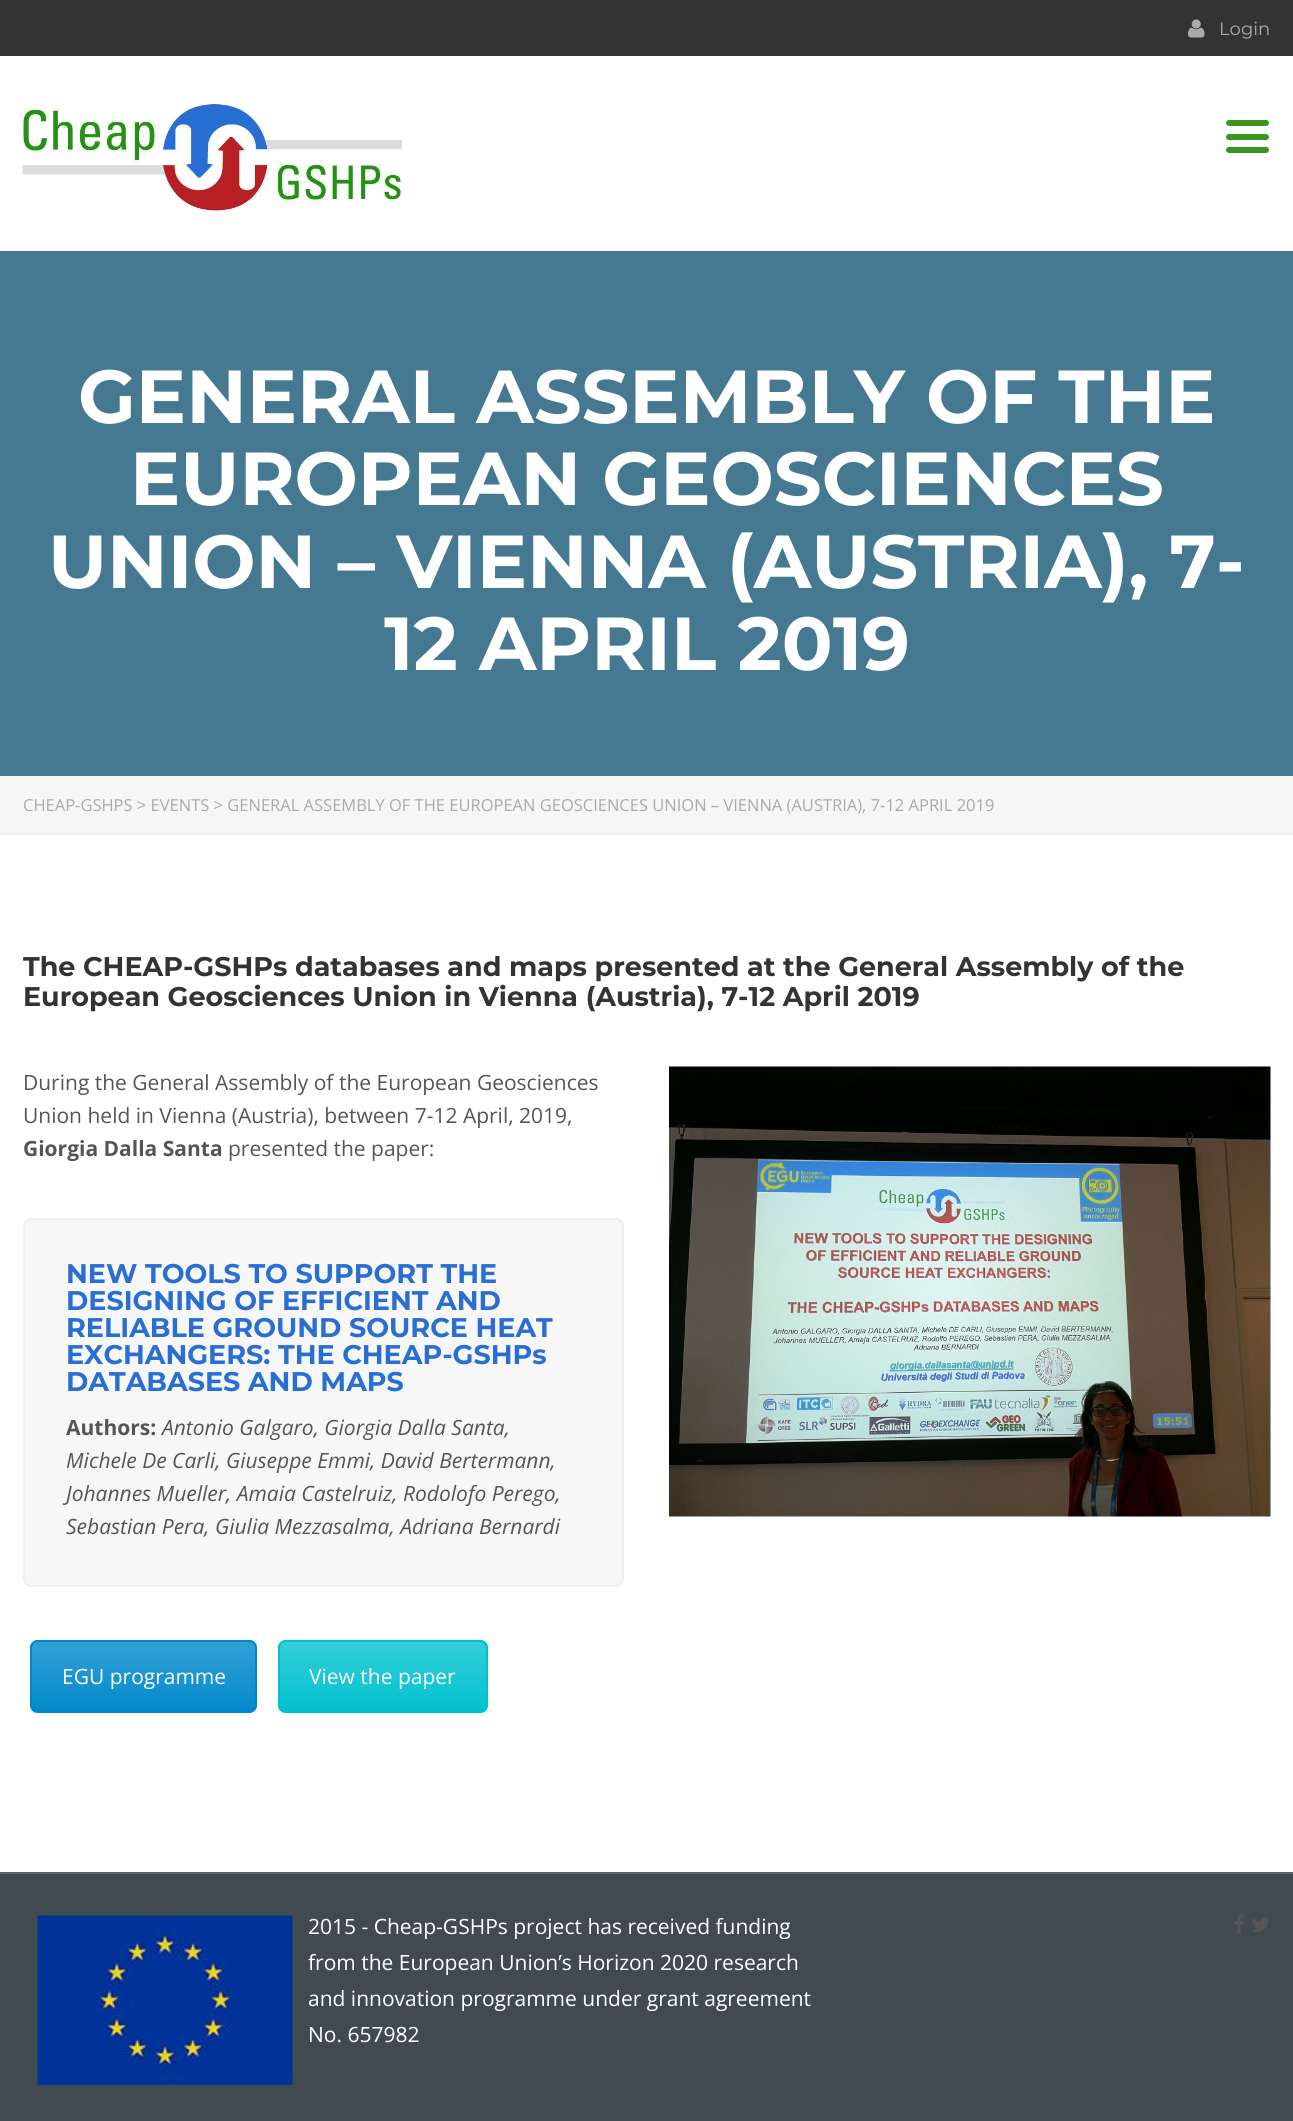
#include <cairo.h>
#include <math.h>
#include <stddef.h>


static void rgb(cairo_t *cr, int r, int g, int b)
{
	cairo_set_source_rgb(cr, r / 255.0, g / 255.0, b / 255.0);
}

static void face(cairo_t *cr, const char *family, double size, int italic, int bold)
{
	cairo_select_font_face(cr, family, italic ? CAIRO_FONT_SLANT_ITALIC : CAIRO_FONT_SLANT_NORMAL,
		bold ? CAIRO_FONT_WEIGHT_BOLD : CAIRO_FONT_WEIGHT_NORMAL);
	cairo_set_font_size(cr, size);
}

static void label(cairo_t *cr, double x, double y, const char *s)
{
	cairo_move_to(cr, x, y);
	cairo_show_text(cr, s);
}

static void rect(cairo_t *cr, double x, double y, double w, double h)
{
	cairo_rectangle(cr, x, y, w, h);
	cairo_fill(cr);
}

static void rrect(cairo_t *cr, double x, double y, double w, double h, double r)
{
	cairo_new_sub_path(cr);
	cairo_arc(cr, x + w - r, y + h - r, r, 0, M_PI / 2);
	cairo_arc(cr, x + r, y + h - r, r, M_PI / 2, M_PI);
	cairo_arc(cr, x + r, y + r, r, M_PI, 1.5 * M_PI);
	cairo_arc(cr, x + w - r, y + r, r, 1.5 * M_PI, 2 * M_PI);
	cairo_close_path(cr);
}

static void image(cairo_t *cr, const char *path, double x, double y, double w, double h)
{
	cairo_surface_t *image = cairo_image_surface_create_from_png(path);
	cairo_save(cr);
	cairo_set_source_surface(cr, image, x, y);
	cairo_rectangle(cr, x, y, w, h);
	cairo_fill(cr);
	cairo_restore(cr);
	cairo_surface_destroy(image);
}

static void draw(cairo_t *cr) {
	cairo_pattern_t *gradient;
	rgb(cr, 255, 255, 255);
	cairo_paint(cr);
	rgb(cr, 51, 51, 51);
	rect(cr, 0, 0, 1293, 56);
	image(cr, "image0.png", 1188, 19, 17, 19);
	face(cr, "Montserrat", 18, 0, 0);
	rgb(cr, 170, 170, 170);
	label(cr, 1219, 35, "Login");
	image(cr, "image1.png", 22, 102, 380, 110);
	rgb(cr, 59, 150, 31);
	rrect(cr, 1226, 120, 43, 6, 3);
	cairo_fill(cr);
	rrect(cr, 1226, 134, 43, 6, 3);
	cairo_fill(cr);
	rrect(cr, 1226, 147, 43, 6, 3);
	cairo_fill(cr);
	rgb(cr, 69, 121, 146);
	rect(cr, 0, 251, 1293, 525);
	face(cr, "Montserrat", 75, 0, 1);
	rgb(cr, 255, 255, 255);
	label(cr, 78, 423, "GENERAL ASSEMBLY OF THE");
	label(cr, 130, 505, "EUROPEAN GEOSCIENCES");
	label(cr, 48, 588, "UNION – VIENNA (AUSTRIA), 7-");
	label(cr, 384, 670, "12 APRIL 2019");
	rgb(cr, 246, 246, 246);
	rect(cr, 0, 776, 1293, 57);
	rgb(cr, 240, 242, 245);
	rect(cr, 0, 833, 1293, 2);
	face(cr, "Open Sans", 16.5, 0, 0);
	rgb(cr, 170, 170, 170);
	label(cr, 23, 811, "CHEAP-GSHPS > EVENTS > GENERAL ASSEMBLY OF THE EUROPEAN GEOSCIENCES UNION – VIENNA (AUSTRIA), 7-12 APRIL 2019");
	face(cr, "Montserrat", 27, 0, 1);
	rgb(cr, 51, 51, 51);
	label(cr, 23, 976, "The CHEAP-GSHPs databases and maps presented at the General Assembly of the");
	label(cr, 23, 1006, "European Geosciences Union in Vienna (Austria), 7-12 April 2019");
	face(cr, "Open Sans", 21, 0, 0);
	rgb(cr, 85, 85, 85);
	label(cr, 23, 1090, "During the General Assembly of the European Geosciences");
	label(cr, 23, 1123, "Union held in Vienna (Austria), between 7-12 April, 2019,");
	face(cr, "Open Sans", 21, 0, 1);
	label(cr, 23, 1156, "Giorgia Dalla Santa");
	face(cr, "Open Sans", 21, 0, 0);
	label(cr, 228, 1156, "presented the paper:");
	rgb(cr, 247, 247, 247);
	rrect(cr, 24, 1219, 599, 367, 7);
	cairo_fill_preserve(cr);
	rgb(cr, 240, 240, 240);
	cairo_stroke(cr);
	face(cr, "Montserrat", 27, 0, 1);
	rgb(cr, 41, 110, 211);
	label(cr, 66, 1283, "NEW TOOLS TO SUPPORT THE");
	label(cr, 66, 1310, "DESIGNING OF EFFICIENT AND");
	label(cr, 66, 1337, "RELIABLE GROUND SOURCE HEAT");
	label(cr, 66, 1364, "EXCHANGERS: THE CHEAP-GSHPs");
	label(cr, 66, 1391, "DATABASES AND MAPS");
	face(cr, "Open Sans", 21, 0, 1);
	rgb(cr, 85, 85, 85);
	label(cr, 66, 1435, "Authors:");
	face(cr, "Open Sans", 21, 1, 0);
	label(cr, 162, 1435, "Antonio Galgaro, Giorgia Dalla Santa,");
	label(cr, 66, 1468, "Michele De Carli, Giuseppe Emmi, David Bertermann,");
	label(cr, 66, 1501, "Johannes Mueller, Amaia Castelruiz, Rodolofo Perego,");
	label(cr, 66, 1534, "Sebastian Pera, Giulia Mezzasalma, Adriana Bernardi");
	rgb(cr, 0, 136, 204);
	rrect(cr, 30, 1640, 227, 73, 8);
	cairo_fill(cr);
	cairo_save(cr);
	rrect(cr, 30, 1640, 227, 73, 8);
	cairo_clip(cr);
	gradient = cairo_pattern_create_linear(143, 1641, 143, 1712);
	cairo_pattern_add_color_stop_rgba(gradient, 0, 1, 1, 1, 0.2);
	cairo_pattern_add_color_stop_rgba(gradient, 1, 1, 1, 1, 0.01);
	cairo_set_source(cr, gradient);
	cairo_pattern_destroy(gradient);
	rect(cr, 30, 1641, 227, 67);
	cairo_restore(cr);
	rrect(cr, 31, 1641, 225, 71, 7);
	cairo_stroke(cr);
	face(cr, "Open Sans", 21, 0, 0);
	rgb(cr, 255, 255, 255);
	label(cr, 62, 1684, "EGU programme");
	rgb(cr, 0, 193, 207);
	rrect(cr, 278, 1640, 210, 73, 8);
	cairo_fill(cr);
	cairo_save(cr);
	rrect(cr, 278, 1640, 210, 73, 8);
	cairo_clip(cr);
	gradient = cairo_pattern_create_linear(383, 1641, 383, 1712);
	cairo_pattern_add_color_stop_rgba(gradient, 0, 1, 1, 1, 0.2);
	cairo_pattern_add_color_stop_rgba(gradient, 1, 1, 1, 1, 0.01);
	cairo_set_source(cr, gradient);
	cairo_pattern_destroy(gradient);
	rect(cr, 278, 1641, 210, 67);
	cairo_restore(cr);
	rrect(cr, 279, 1641, 208, 71, 7);
	cairo_stroke(cr);
	rgb(cr, 255, 255, 255);
	label(cr, 309, 1684, "View the paper");
	image(cr, "image2.png", 669, 1066, 602, 451);
	rgb(cr, 65, 75, 79);
	rect(cr, 0, 1874, 1293, 247);
	rgb(cr, 94, 103, 107);
	rect(cr, 0, 1872, 1293, 2);
	image(cr, "image3.png", 37, 1915, 256, 170);
	rgb(cr, 255, 255, 255);
	label(cr, 308, 1934, "2015 - Cheap-GSHPs project has received funding");
	label(cr, 308, 1970, "from the European Union’s Horizon 2020 research");
	label(cr, 308, 2006, "and innovation programme under grant agreement");
	label(cr, 308, 2042, "No. 657982");
	image(cr, "image4.png", 1234, 1914, 11, 20);
	image(cr, "image5.png", 1252, 1917, 18, 15);
}

int main(void) {
	cairo_surface_t *surface = cairo_image_surface_create(CAIRO_FORMAT_RGB24, 1293, 2121);
	cairo_t *cr = cairo_create(surface);
	cairo_font_options_t *options = cairo_font_options_create();
	cairo_font_options_set_hint_metrics(options, CAIRO_HINT_METRICS_OFF);
	cairo_font_options_set_hint_style(options, CAIRO_HINT_STYLE_NONE);
	cairo_set_font_options(cr, options);
	cairo_set_miter_limit(cr, 4);
	draw(cr);
	cairo_surface_write_to_png(surface, "render.png");
	cairo_font_options_destroy(options);
	cairo_destroy(cr);
	cairo_surface_destroy(surface);
	return 0;
}
